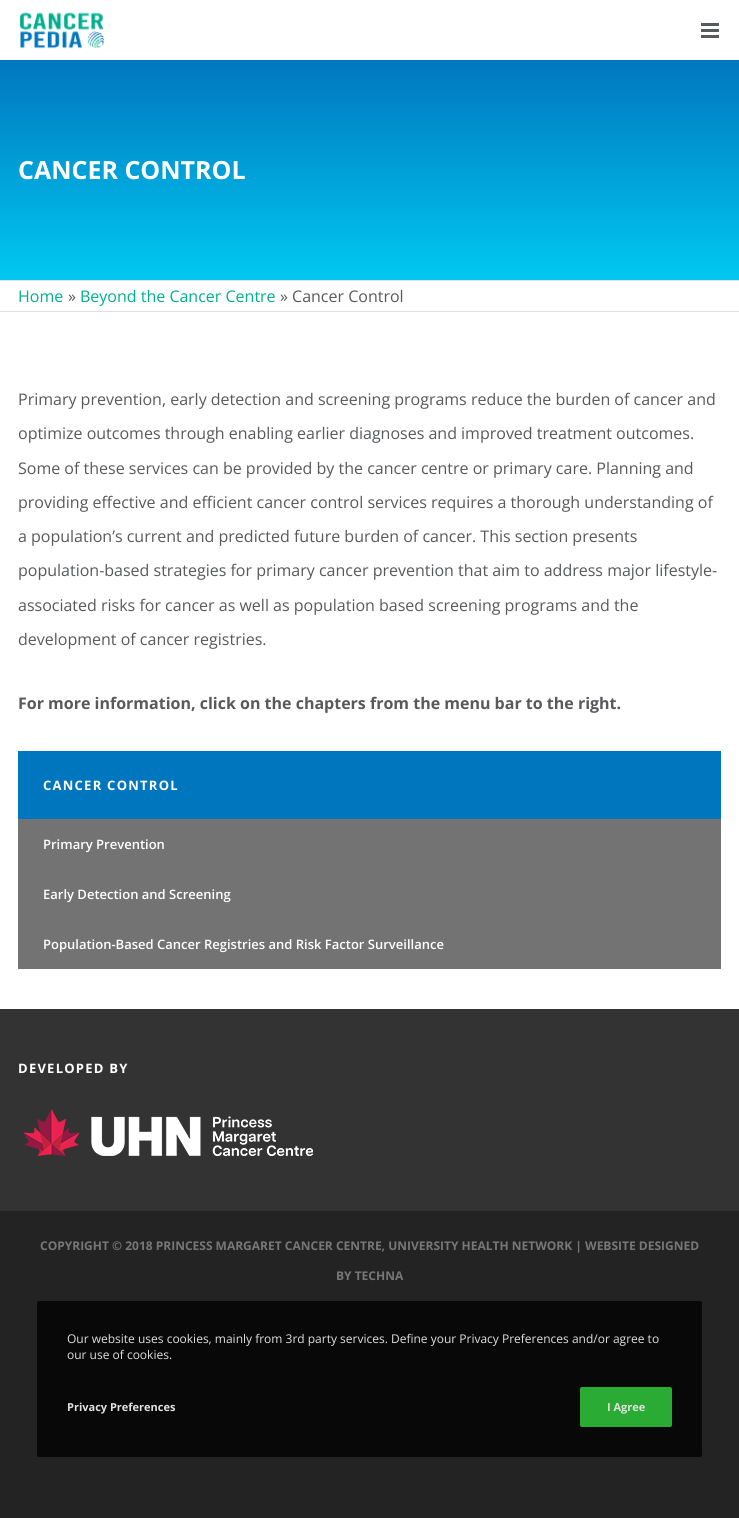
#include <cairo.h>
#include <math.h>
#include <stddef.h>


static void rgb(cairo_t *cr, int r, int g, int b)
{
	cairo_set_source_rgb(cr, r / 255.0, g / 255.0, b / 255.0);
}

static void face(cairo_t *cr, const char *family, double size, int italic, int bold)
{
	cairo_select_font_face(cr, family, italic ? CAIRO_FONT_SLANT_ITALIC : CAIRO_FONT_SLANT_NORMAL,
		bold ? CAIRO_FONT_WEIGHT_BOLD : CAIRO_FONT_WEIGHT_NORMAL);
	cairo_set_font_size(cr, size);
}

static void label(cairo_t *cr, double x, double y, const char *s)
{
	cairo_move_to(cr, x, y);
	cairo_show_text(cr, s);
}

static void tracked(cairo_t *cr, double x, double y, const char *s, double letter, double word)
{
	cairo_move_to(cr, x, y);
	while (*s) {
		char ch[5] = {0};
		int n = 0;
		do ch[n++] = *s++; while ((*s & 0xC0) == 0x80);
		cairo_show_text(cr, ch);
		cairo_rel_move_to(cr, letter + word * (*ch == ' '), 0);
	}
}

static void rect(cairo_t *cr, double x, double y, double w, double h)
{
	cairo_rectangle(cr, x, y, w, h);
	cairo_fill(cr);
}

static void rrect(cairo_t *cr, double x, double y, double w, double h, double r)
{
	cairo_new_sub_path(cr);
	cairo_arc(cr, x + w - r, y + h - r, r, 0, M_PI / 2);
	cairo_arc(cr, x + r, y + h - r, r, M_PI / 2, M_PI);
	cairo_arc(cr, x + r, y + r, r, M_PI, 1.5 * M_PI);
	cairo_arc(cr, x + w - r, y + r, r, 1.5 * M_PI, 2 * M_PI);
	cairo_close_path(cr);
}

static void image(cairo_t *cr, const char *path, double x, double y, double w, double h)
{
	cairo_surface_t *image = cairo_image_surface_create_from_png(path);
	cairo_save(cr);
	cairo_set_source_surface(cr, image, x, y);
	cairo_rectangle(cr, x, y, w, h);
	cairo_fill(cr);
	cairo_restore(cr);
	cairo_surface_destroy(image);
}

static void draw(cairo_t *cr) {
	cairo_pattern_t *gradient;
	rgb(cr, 35, 35, 35);
	cairo_paint(cr);
	rgb(cr, 255, 255, 255);
	rect(cr, 0, 0, 739, 60);
	image(cr, "image0.png", 20, 12, 84, 37);
	rgb(cr, 88, 89, 91);
	rect(cr, 701, 23, 18, 3);
	rect(cr, 701, 29, 18, 3);
	rect(cr, 701, 35, 18, 3);
	gradient = cairo_pattern_create_linear(370, 60, 370, 280);
	cairo_pattern_add_color_stop_rgba(gradient, 0, 0, 0.467, 0.749, 1);
	cairo_pattern_add_color_stop_rgba(gradient, 1, 0, 0.784, 0.945, 1);
	cairo_set_source(cr, gradient);
	cairo_pattern_destroy(gradient);
	rect(cr, 0, 60, 739, 220);
	face(cr, "Open Sans", 25, 0, 1);
	rgb(cr, 255, 255, 255);
	label(cr, 18, 179, "CANCER CONTROL");
	rect(cr, 0, 281, 739, 728);
	rgb(cr, 224, 224, 224);
	rect(cr, 0, 280, 739, 1);
	rect(cr, 0, 311, 739, 1);
	face(cr, "Open Sans", 16, 0, 0);
	rgb(cr, 0, 176, 142);
	label(cr, 18, 302, "Home");
	rgb(cr, 88, 89, 91);
	label(cr, 68, 302, "»");
	rgb(cr, 0, 176, 142);
	label(cr, 80, 302, "Beyond the Cancer Centre");
	rgb(cr, 88, 89, 91);
	label(cr, 280, 302, "» Cancer Control");
	label(cr, 18, 405, "Primary prevention, early detection and screening programs reduce the burden of cancer and");
	label(cr, 18, 439, "optimize outcomes through enabling earlier diagnoses and improved treatment outcomes.");
	label(cr, 18, 474, "Some of these services can be provided by the cancer centre or primary care. Planning and");
	label(cr, 18, 508, "providing effective and efficient cancer control services requires a thorough understanding of");
	label(cr, 18, 542, "a population’s current and predicted future burden of cancer. This section presents");
	label(cr, 18, 576, "population-based strategies for primary cancer prevention that aim to address major lifestyle-");
	label(cr, 18, 611, "associated risks for cancer as well as population based screening programs and the");
	label(cr, 18, 645, "development of cancer registries.");
	face(cr, "Open Sans", 16, 0, 1);
	label(cr, 18, 709, "For more information, click on the chapters from the menu bar to the right.");
	rgb(cr, 115, 115, 115);
	rect(cr, 18, 819, 703, 150);
	rgb(cr, 0, 118, 191);
	rect(cr, 18, 751, 703, 68);
	face(cr, "Open Sans", 13, 0, 1);
	rgb(cr, 255, 255, 255);
	tracked(cr, 43, 790, "CANCER CONTROL", 1.25, 0);
	face(cr, "Open Sans SemiBold", 13, 0, 0);
	label(cr, 43, 849, "Primary Prevention");
	label(cr, 43, 899, "Early Detection and Screening");
	label(cr, 43, 949, "Population-Based Cancer Registries and Risk Factor Surveillance");
	rgb(cr, 51, 51, 51);
	rect(cr, 0, 1009, 739, 202);
	face(cr, "Open Sans", 13, 0, 1);
	rgb(cr, 255, 255, 255);
	tracked(cr, 18, 1073, "DEVELOPED BY", 1.25, 0);
	image(cr, "image1.png", 23, 1109, 290, 47);
	face(cr, "Open Sans", 12, 0, 1);
	rgb(cr, 119, 119, 119);
	label(cr, 40, 1250, "COPYRIGHT © 2018 PRINCESS MARGARET CANCER CENTRE, UNIVERSITY HEALTH NETWORK | WEBSITE DESIGNED");
	label(cr, 336, 1280, "BY TECHNA");
	rgb(cr, 8, 8, 8);
	rrect(cr, 37, 1301, 665, 156, 2);
	cairo_fill(cr);
	face(cr, "Open Sans", 12, 0, 0);
	rgb(cr, 224, 224, 224);
	label(cr, 67, 1343, "Our website uses cookies, mainly from 3rd party services. Define your Privacy Preferences and/or agree to");
	label(cr, 67, 1359, "our use of cookies.");
	face(cr, "Open Sans", 11, 0, 1);
	label(cr, 67, 1411, "Privacy Preferences");
	rgb(cr, 42, 171, 52);
	rrect(cr, 580, 1387, 92, 40, 2);
	cairo_fill(cr);
	rgb(cr, 224, 224, 224);
	label(cr, 607, 1411, "I Agree");
}

int main(void) {
	cairo_surface_t *surface = cairo_image_surface_create(CAIRO_FORMAT_RGB24, 739, 1518);
	cairo_t *cr = cairo_create(surface);
	cairo_font_options_t *options = cairo_font_options_create();
	cairo_font_options_set_hint_metrics(options, CAIRO_HINT_METRICS_OFF);
	cairo_font_options_set_hint_style(options, CAIRO_HINT_STYLE_NONE);
	cairo_set_font_options(cr, options);
	cairo_set_miter_limit(cr, 4);
	draw(cr);
	cairo_surface_write_to_png(surface, "render.png");
	cairo_font_options_destroy(options);
	cairo_destroy(cr);
	cairo_surface_destroy(surface);
	return 0;
}
